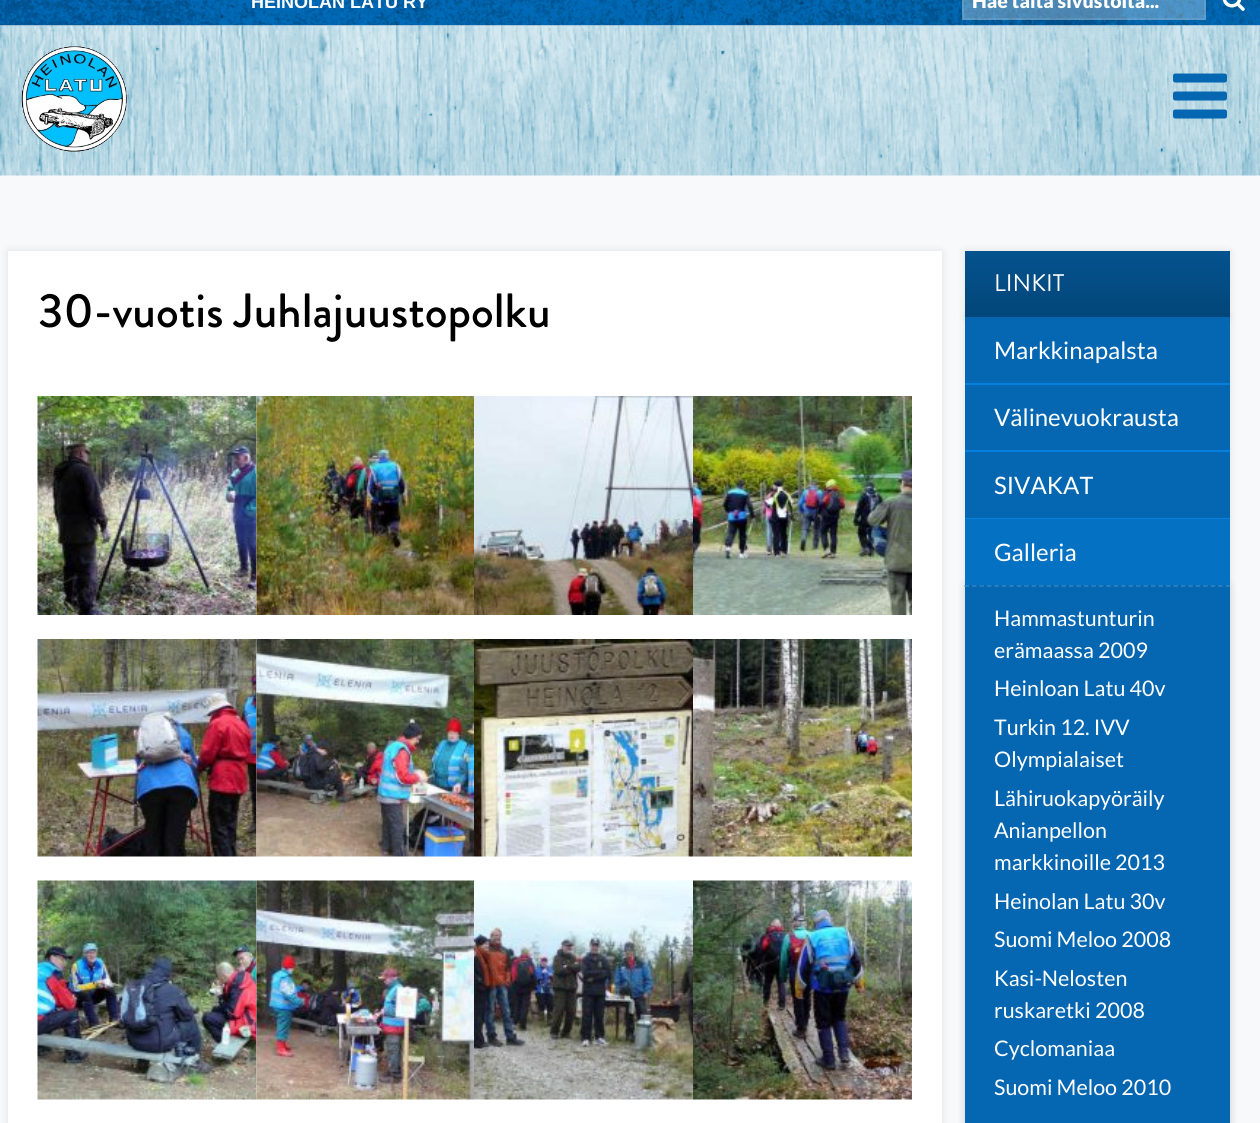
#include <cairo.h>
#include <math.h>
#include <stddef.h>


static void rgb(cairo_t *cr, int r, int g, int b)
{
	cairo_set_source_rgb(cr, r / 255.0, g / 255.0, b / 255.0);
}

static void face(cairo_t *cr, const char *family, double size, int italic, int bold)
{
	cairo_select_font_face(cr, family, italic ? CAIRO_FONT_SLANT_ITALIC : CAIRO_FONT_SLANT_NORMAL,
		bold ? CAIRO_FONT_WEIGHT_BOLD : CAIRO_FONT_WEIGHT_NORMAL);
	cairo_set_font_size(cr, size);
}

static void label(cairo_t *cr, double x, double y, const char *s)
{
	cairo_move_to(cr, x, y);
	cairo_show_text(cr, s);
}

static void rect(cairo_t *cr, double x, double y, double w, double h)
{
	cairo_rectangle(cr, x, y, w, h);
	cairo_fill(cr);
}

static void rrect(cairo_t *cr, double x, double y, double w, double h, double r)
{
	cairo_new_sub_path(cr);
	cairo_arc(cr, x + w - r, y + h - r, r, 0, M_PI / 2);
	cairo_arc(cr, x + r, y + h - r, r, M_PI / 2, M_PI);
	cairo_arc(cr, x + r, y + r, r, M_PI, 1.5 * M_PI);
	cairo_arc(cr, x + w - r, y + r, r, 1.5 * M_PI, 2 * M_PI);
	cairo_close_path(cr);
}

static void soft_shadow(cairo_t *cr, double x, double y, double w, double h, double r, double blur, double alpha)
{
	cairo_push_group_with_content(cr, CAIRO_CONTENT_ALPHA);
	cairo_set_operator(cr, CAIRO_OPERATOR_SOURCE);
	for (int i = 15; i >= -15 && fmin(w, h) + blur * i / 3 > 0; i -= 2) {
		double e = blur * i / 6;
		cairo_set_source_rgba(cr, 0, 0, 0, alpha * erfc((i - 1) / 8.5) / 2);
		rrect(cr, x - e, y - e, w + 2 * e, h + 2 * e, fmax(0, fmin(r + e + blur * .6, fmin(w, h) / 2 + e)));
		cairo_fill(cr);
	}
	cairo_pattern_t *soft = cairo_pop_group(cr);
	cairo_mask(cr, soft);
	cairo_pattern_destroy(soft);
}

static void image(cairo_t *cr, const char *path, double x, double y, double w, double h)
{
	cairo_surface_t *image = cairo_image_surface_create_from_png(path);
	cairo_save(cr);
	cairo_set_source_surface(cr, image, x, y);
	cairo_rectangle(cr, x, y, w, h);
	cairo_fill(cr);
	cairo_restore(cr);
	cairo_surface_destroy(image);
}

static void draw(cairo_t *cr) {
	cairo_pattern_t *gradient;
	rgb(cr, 248, 249, 250);
	cairo_paint(cr);
	image(cr, "image0.png", 0, 0, 1260, 26);
	face(cr, "Liberation Sans", 18, 0, 1);
	rgb(cr, 255, 255, 255);
	label(cr, 251, 8, "HEINOLAN LATU RY");
	cairo_set_source_rgba(cr, 1, 1, 1, 0.3);
	rect(cr, 962, 0, 244, 20);
	cairo_rectangle(cr, 963, -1, 242, 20);
	cairo_set_source_rgba(cr, 1, 1, 1, 0.1);
	cairo_stroke(cr);
	face(cr, "Lato Black", 19.5, 0, 0);
	rgb(cr, 255, 255, 255);
	label(cr, 972, 8, "Hae tältä sivustolta...");
	image(cr, "image1.png", 1222, 0, 23, 11);
	image(cr, "image2.png", 0, 25, 1260, 151);
	image(cr, "image3.png", 21, 46, 106, 106);
	image(cr, "image4.png", 1173, 73, 54, 46);
	rgb(cr, 0, 0, 0);
	soft_shadow(cr, 8, 251, 934, 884, 0, 4, 0.1);
	rgb(cr, 255, 255, 255);
	rect(cr, 8, 251, 934, 872);
	face(cr, "Brandon Grotesque Medium", 48, 0, 0);
	rgb(cr, 0, 0, 0);
	label(cr, 38, 327, "30-vuotis Juhlajuustopolku");
	image(cr, "image5.png", 37, 396, 220, 219);
	image(cr, "image6.png", 256, 396, 218, 219);
	image(cr, "image7.png", 474, 396, 219, 219);
	image(cr, "image8.png", 693, 396, 219, 219);
	image(cr, "image9.png", 37, 639, 220, 218);
	image(cr, "image10.png", 256, 639, 218, 218);
	image(cr, "image11.png", 474, 639, 219, 218);
	image(cr, "image12.png", 693, 639, 219, 218);
	image(cr, "image13.png", 37, 880, 220, 220);
	image(cr, "image14.png", 256, 880, 218, 220);
	image(cr, "image15.png", 474, 880, 219, 220);
	image(cr, "image16.png", 693, 880, 219, 220);
	rgb(cr, 0, 0, 0);
	soft_shadow(cr, 965, 251, 265, 66, 0, 4, 0.1);
	soft_shadow(cr, 965, 317, 265, 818, 0, 4, 0.1);
	gradient = cairo_pattern_create_linear(1097, 251, 1097, 317);
	cairo_pattern_add_color_stop_rgba(gradient, 0.02, 0.016, 0.322, 0.557, 1);
	cairo_pattern_add_color_stop_rgba(gradient, 1, 0.012, 0.275, 0.475, 1);
	cairo_set_source(cr, gradient);
	cairo_pattern_destroy(gradient);
	rect(cr, 965, 251, 265, 66);
	face(cr, "Brandon Grotesque", 24, 0, 0);
	rgb(cr, 255, 255, 255);
	label(cr, 994, 291, "LINKIT");
	rgb(cr, 5, 103, 178);
	rect(cr, 965, 317, 265, 806);
	rgb(cr, 6, 128, 222);
	rect(cr, 965, 383, 265, 2);
	face(cr, "Lato", 24, 0, 0);
	rgb(cr, 255, 255, 255);
	label(cr, 994, 359, "Markkinapalsta");
	rgb(cr, 6, 128, 222);
	rect(cr, 965, 450, 265, 2);
	rgb(cr, 255, 255, 255);
	label(cr, 994, 426, "Välinevuokrausta");
	rgb(cr, 6, 128, 222);
	rect(cr, 965, 518, 265, 1);
	rgb(cr, 255, 255, 255);
	label(cr, 994, 494, "SIVAKAT");
	cairo_save(cr);
	cairo_set_fill_rule(cr, CAIRO_FILL_RULE_EVEN_ODD);
	cairo_new_path(cr);
	cairo_move_to(cr, 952, 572);
	cairo_line_to(cr, 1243, 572);
	cairo_line_to(cr, 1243, 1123);
	cairo_line_to(cr, 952, 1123);
	cairo_close_path(cr);
	cairo_move_to(cr, 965, 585);
	cairo_line_to(cr, 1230, 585);
	cairo_line_to(cr, 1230, 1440);
	cairo_line_to(cr, 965, 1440);
	cairo_close_path(cr);
	cairo_clip(cr);
	rgb(cr, 0, 0, 0);
	soft_shadow(cr, 965, 585, 265, 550, 0, 4, 0.1);
	cairo_restore(cr);
	rgb(cr, 5, 113, 195);
	rect(cr, 965, 519, 265, 66);
	rgb(cr, 255, 255, 255);
	label(cr, 994, 561, "Galleria");
	cairo_new_path(cr);
	cairo_move_to(cr, 964.5, 586);
	cairo_line_to(cr, 1230, 586);
	rgb(cr, 53, 133, 192);
	cairo_set_line_width(cr, 1.5);
	cairo_set_dash(cr, (double[]){4.5, 2.96}, 2, 0);
	cairo_stroke(cr);
	face(cr, "Lato", 21.5, 0, 0);
	rgb(cr, 255, 255, 255);
	label(cr, 994, 626, "Hammastunturin");
	label(cr, 994, 658, "erämaassa 2009");
	label(cr, 994, 696, "Heinloan Latu 40v");
	label(cr, 994, 735, "Turkin 12. IVV");
	label(cr, 994, 767, "Olympialaiset");
	label(cr, 994, 806, "Lähiruokapyöräily");
	label(cr, 994, 838, "Anianpellon");
	label(cr, 994, 870, "markkinoille 2013");
	label(cr, 994, 909, "Heinolan Latu 30v");
	label(cr, 994, 947, "Suomi Meloo 2008");
	label(cr, 994, 986, "Kasi-Nelosten");
	label(cr, 994, 1018, "ruskaretki 2008");
	label(cr, 994, 1056, "Cyclomaniaa");
	label(cr, 994, 1095, "Suomi Meloo 2010");
}

int main(void) {
	cairo_surface_t *surface = cairo_image_surface_create(CAIRO_FORMAT_RGB24, 1260, 1123);
	cairo_t *cr = cairo_create(surface);
	cairo_font_options_t *options = cairo_font_options_create();
	cairo_font_options_set_hint_metrics(options, CAIRO_HINT_METRICS_OFF);
	cairo_font_options_set_hint_style(options, CAIRO_HINT_STYLE_NONE);
	cairo_set_font_options(cr, options);
	cairo_set_miter_limit(cr, 4);
	draw(cr);
	cairo_surface_write_to_png(surface, "render.png");
	cairo_font_options_destroy(options);
	cairo_destroy(cr);
	cairo_surface_destroy(surface);
	return 0;
}
